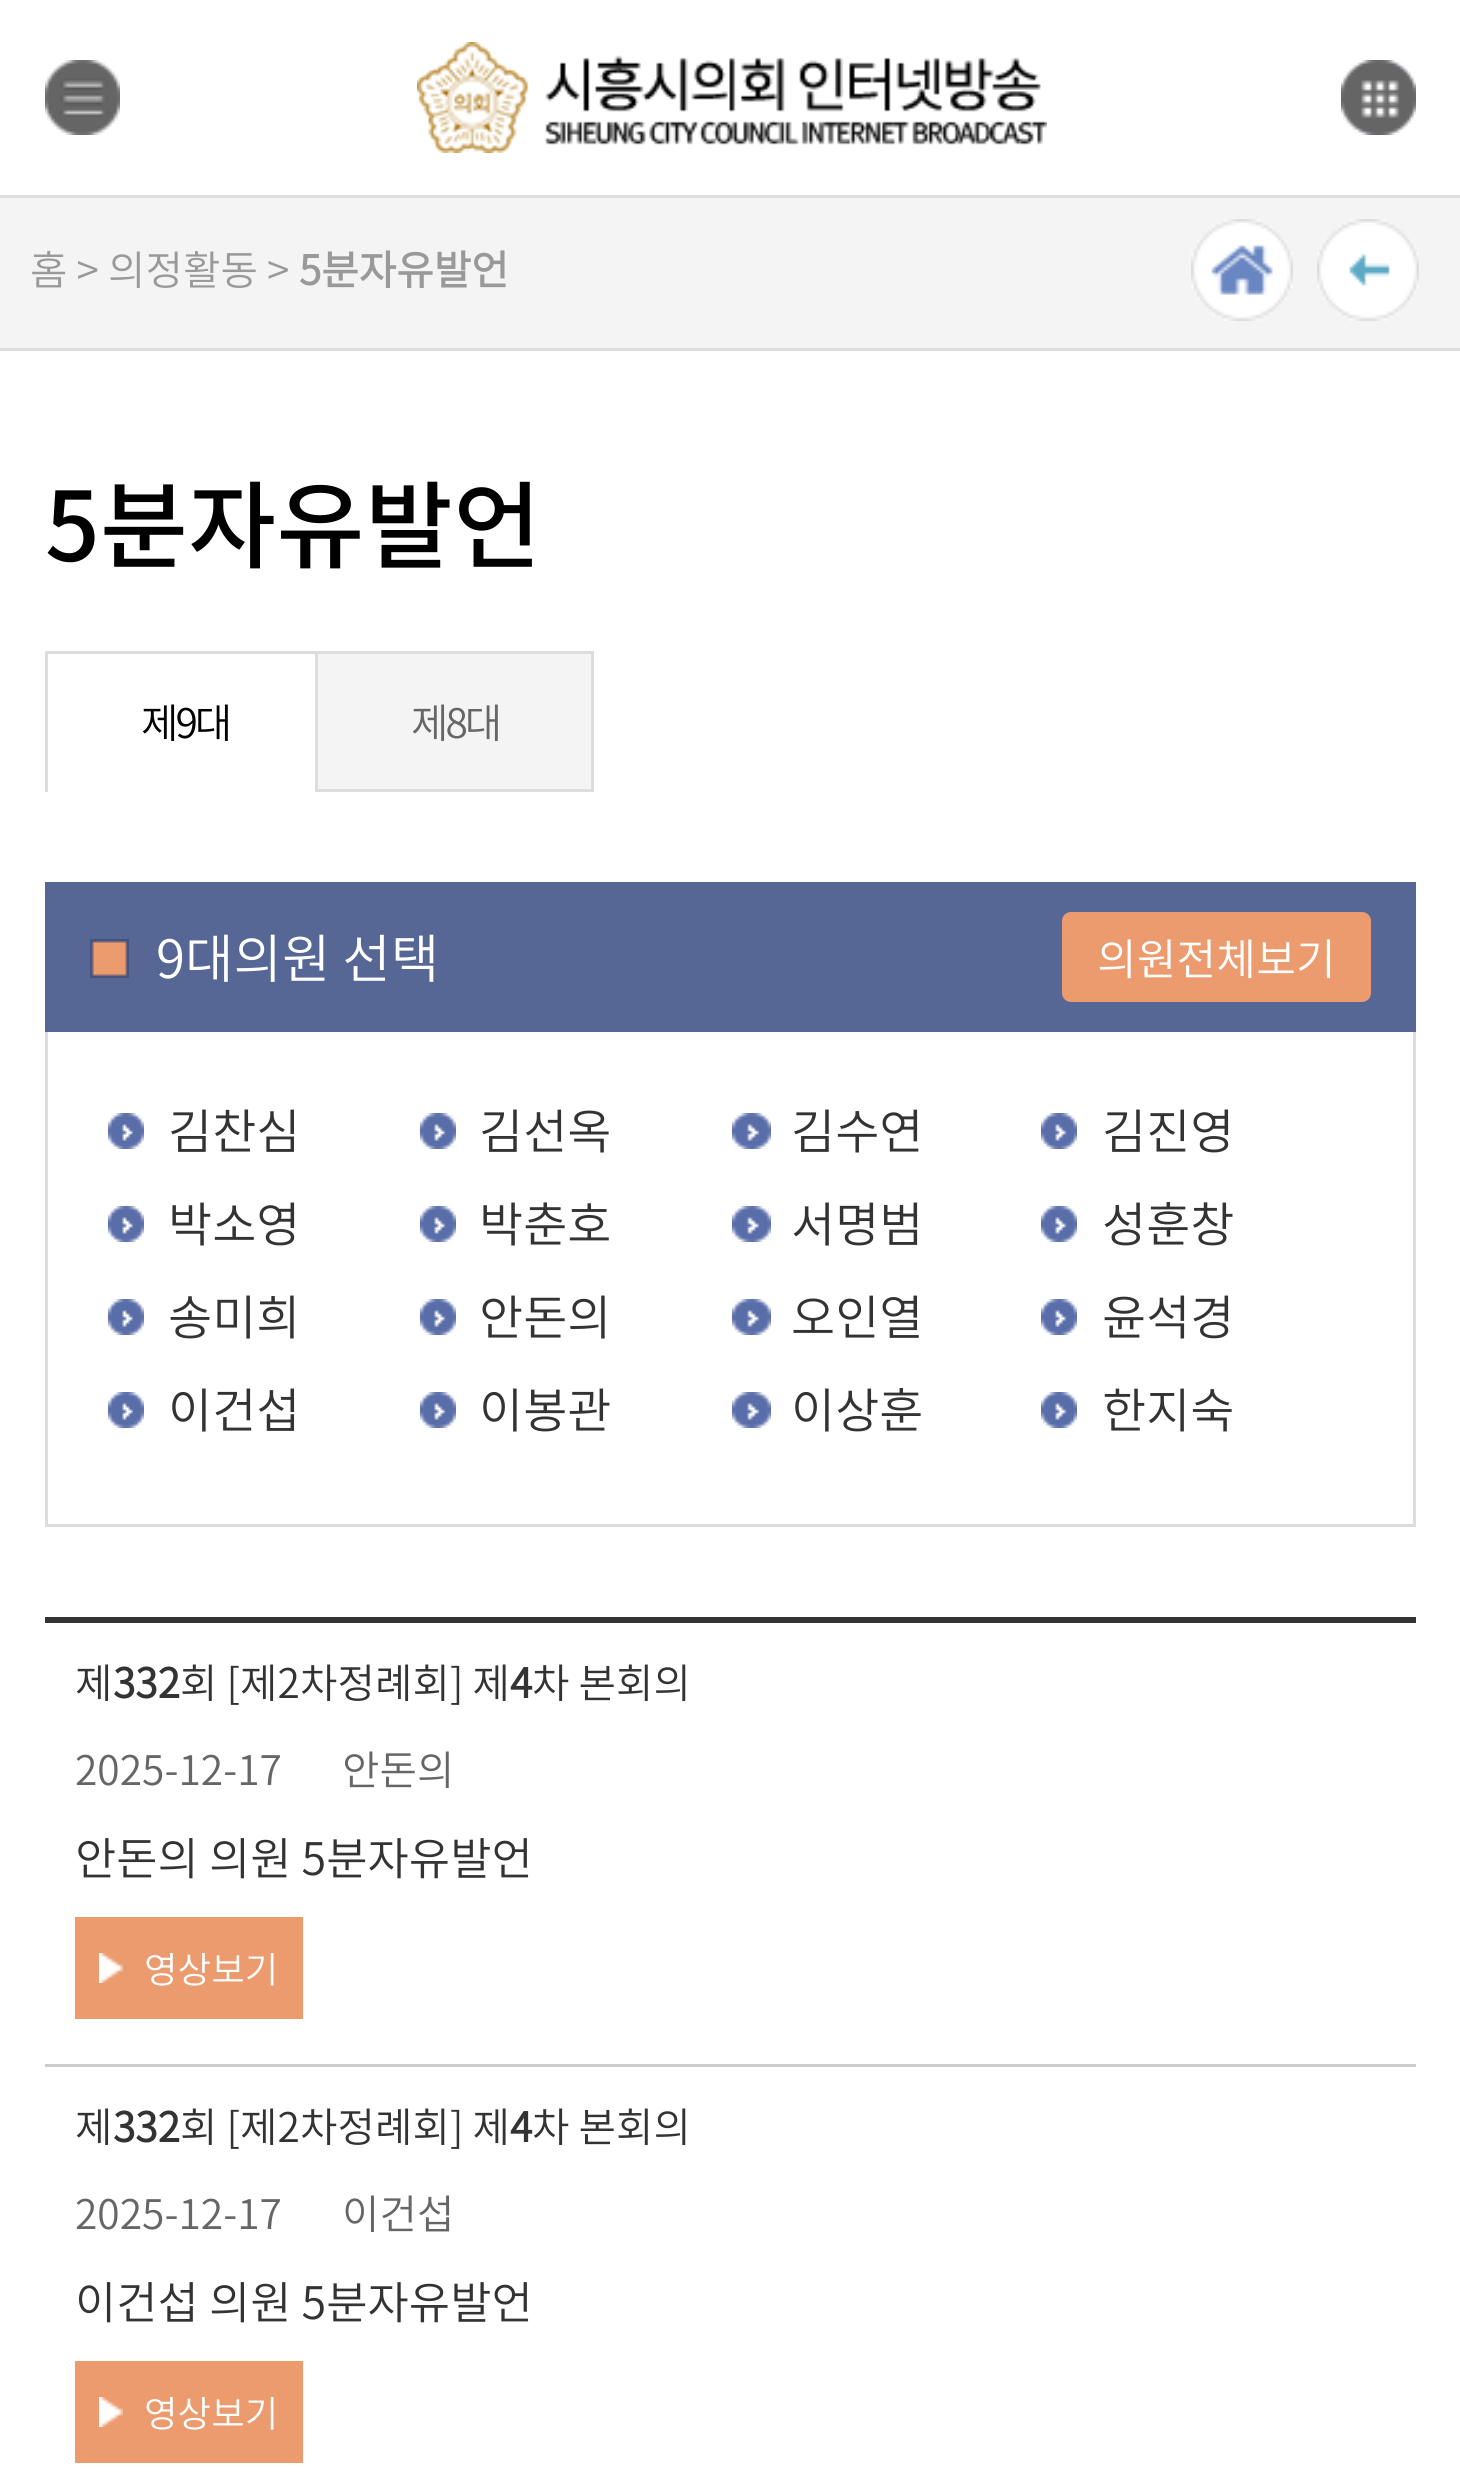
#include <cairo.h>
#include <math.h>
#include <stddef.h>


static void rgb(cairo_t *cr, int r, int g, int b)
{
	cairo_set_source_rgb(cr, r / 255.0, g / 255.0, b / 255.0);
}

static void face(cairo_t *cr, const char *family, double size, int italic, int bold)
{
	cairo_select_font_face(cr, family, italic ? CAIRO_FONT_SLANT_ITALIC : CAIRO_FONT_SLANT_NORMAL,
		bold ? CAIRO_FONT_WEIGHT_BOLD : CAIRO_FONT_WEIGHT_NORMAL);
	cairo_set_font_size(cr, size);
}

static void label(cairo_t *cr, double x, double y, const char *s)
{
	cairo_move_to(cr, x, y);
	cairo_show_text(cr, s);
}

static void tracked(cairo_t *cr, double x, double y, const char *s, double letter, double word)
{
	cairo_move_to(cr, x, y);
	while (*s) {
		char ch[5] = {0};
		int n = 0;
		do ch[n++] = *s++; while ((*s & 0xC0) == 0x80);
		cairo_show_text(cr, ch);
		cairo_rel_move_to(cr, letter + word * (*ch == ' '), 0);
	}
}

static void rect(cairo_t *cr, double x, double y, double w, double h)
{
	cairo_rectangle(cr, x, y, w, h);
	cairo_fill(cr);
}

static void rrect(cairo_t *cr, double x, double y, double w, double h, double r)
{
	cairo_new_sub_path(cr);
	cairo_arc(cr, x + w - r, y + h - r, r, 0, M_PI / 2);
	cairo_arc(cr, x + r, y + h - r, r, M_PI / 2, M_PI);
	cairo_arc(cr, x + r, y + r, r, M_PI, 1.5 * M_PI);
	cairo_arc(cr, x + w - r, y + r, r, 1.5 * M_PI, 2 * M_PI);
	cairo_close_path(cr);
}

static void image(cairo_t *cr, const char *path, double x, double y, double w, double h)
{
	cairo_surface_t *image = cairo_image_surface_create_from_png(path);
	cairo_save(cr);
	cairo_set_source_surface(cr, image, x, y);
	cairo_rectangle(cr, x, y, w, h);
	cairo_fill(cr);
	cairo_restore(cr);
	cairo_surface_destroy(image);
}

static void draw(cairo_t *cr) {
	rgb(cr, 255, 255, 255);
	cairo_paint(cr);
	rgb(cr, 221, 221, 221);
	rect(cr, 0, 195, 1460, 3);
	image(cr, "image0.png", 417, 42, 630, 111);
	image(cr, "image1.png", 45, 60, 75, 75);
	image(cr, "image2.png", 1341, 60, 75, 75);
	rgb(cr, 244, 244, 244);
	rect(cr, 0, 198, 1460, 150);
	rgb(cr, 221, 221, 221);
	rect(cr, 0, 348, 1460, 3);
	face(cr, "Noto Sans KR Light", 40.75, 0, 0);
	rgb(cr, 153, 153, 153);
	label(cr, 30, 285, "홈 > 의정활동 >");
	face(cr, "Noto Sans KR", 40.75, 0, 1);
	label(cr, 299, 285, "5분자유발언");
	image(cr, "image3.png", 1191, 219, 102, 102);
	image(cr, "image4.png", 1317, 219, 102, 102);
	face(cr, "Noto Sans KR Medium", 96, 0, 0);
	rgb(cr, 0, 0, 0);
	label(cr, 45, 561, "5분자유발언");
	rgb(cr, 221, 221, 221);
	rect(cr, 45, 651, 270, 3);
	rect(cr, 45, 651, 3, 141);
	face(cr, "Noto Sans KR Light", 40.75, 0, 0);
	rgb(cr, 0, 0, 0);
	tracked(cr, 141, 738, "제9대", -3, 0);
	rgb(cr, 244, 244, 244);
	cairo_rectangle(cr, 316.5, 652.5, 276, 138);
	cairo_fill_preserve(cr);
	rgb(cr, 221, 221, 221);
	cairo_set_line_width(cr, 3);
	cairo_stroke(cr);
	rgb(cr, 102, 102, 102);
	tracked(cr, 411, 738, "제8대", -3, 0);
	rgb(cr, 86, 102, 149);
	rect(cr, 45, 882, 1371, 150);
	image(cr, "image5.png", 90, 939, 39, 39);
	face(cr, "Noto Sans KR Light", 52.75, 0, 0);
	rgb(cr, 255, 255, 255);
	label(cr, 156, 978, "9대의원 선택");
	rgb(cr, 236, 155, 110);
	rrect(cr, 1062, 912, 309, 90, 9);
	cairo_fill(cr);
	face(cr, "Noto Sans KR Light", 43.25, 0, 0);
	rgb(cr, 255, 255, 255);
	label(cr, 1097, 975, "의원전체보기");
	rgb(cr, 221, 221, 221);
	rect(cr, 1413, 1032, 3, 495);
	rect(cr, 45, 1524, 1371, 3);
	rect(cr, 45, 1032, 3, 495);
	image(cr, "image6.png", 108, 1113, 36, 36);
	face(cr, "Noto Sans KR Light", 48, 0, 0);
	rgb(cr, 51, 51, 51);
	label(cr, 168, 1149, "김찬심");
	image(cr, "image7.png", 420, 1113, 36, 36);
	label(cr, 479, 1149, "김선옥");
	image(cr, "image8.png", 732, 1113, 39, 36);
	label(cr, 791, 1149, "김수연");
	image(cr, "image7.png", 1041, 1113, 36, 36);
	label(cr, 1102, 1149, "김진영");
	image(cr, "image6.png", 108, 1206, 36, 36);
	label(cr, 168, 1242, "박소영");
	image(cr, "image7.png", 420, 1206, 36, 36);
	label(cr, 479, 1242, "박춘호");
	image(cr, "image8.png", 732, 1206, 39, 36);
	label(cr, 791, 1242, "서명범");
	image(cr, "image7.png", 1041, 1206, 36, 36);
	label(cr, 1102, 1242, "성훈창");
	image(cr, "image6.png", 108, 1299, 36, 36);
	label(cr, 168, 1335, "송미희");
	image(cr, "image7.png", 420, 1299, 36, 36);
	label(cr, 479, 1335, "안돈의");
	image(cr, "image8.png", 732, 1299, 39, 36);
	label(cr, 791, 1335, "오인열");
	image(cr, "image7.png", 1041, 1299, 36, 36);
	label(cr, 1102, 1335, "윤석경");
	image(cr, "image6.png", 108, 1392, 36, 36);
	label(cr, 168, 1428, "이건섭");
	image(cr, "image7.png", 420, 1392, 36, 36);
	label(cr, 479, 1428, "이봉관");
	image(cr, "image8.png", 732, 1392, 39, 36);
	label(cr, 791, 1428, "이상훈");
	image(cr, "image7.png", 1041, 1392, 36, 36);
	label(cr, 1102, 1428, "한지숙");
	rect(cr, 45, 1617, 1371, 6);
	rgb(cr, 204, 204, 204);
	rect(cr, 45, 2064, 1371, 3);
	face(cr, "Noto Sans KR Light", 40.75, 0, 0);
	rgb(cr, 51, 51, 51);
	label(cr, 75, 1698, "제");
	face(cr, "Noto Sans KR", 40.75, 0, 1);
	label(cr, 113, 1698, "332");
	face(cr, "Noto Sans KR Light", 40.75, 0, 0);
	label(cr, 180, 1698, "회 [제2차정례회] 제");
	face(cr, "Noto Sans KR", 40.75, 0, 1);
	label(cr, 510, 1698, "4");
	face(cr, "Noto Sans KR Light", 40.75, 0, 0);
	label(cr, 532, 1698, "차 본회의");
	rgb(cr, 102, 102, 102);
	label(cr, 75, 1785, "2025-12-17");
	label(cr, 342, 1785, "안돈의");
	face(cr, "Noto Sans KR Light", 44.9, 0, 0);
	rgb(cr, 51, 51, 51);
	label(cr, 75, 1875, "안돈의 의원 5분자유발언");
	rgb(cr, 236, 155, 110);
	rect(cr, 75, 1917, 228, 102);
	image(cr, "image9.png", 99, 1953, 24, 30);
	face(cr, "Noto Sans KR Light", 36.5, 0, 0);
	rgb(cr, 255, 255, 255);
	label(cr, 144, 1983, "영상보기");
	face(cr, "Noto Sans KR Light", 40.75, 0, 0);
	rgb(cr, 51, 51, 51);
	label(cr, 75, 2142, "제");
	face(cr, "Noto Sans KR", 40.75, 0, 1);
	label(cr, 113, 2142, "332");
	face(cr, "Noto Sans KR Light", 40.75, 0, 0);
	label(cr, 180, 2142, "회 [제2차정례회] 제");
	face(cr, "Noto Sans KR", 40.75, 0, 1);
	label(cr, 510, 2142, "4");
	face(cr, "Noto Sans KR Light", 40.75, 0, 0);
	label(cr, 532, 2142, "차 본회의");
	rgb(cr, 102, 102, 102);
	label(cr, 75, 2229, "2025-12-17");
	label(cr, 342, 2229, "이건섭");
	face(cr, "Noto Sans KR Light", 44.9, 0, 0);
	rgb(cr, 51, 51, 51);
	label(cr, 75, 2319, "이건섭 의원 5분자유발언");
	rgb(cr, 236, 155, 110);
	rect(cr, 75, 2361, 228, 102);
	image(cr, "image9.png", 99, 2397, 24, 30);
	face(cr, "Noto Sans KR Light", 36.5, 0, 0);
	rgb(cr, 255, 255, 255);
	label(cr, 144, 2427, "영상보기");
}

int main(void) {
	cairo_surface_t *surface = cairo_image_surface_create(CAIRO_FORMAT_RGB24, 1460, 2475);
	cairo_t *cr = cairo_create(surface);
	cairo_font_options_t *options = cairo_font_options_create();
	cairo_font_options_set_hint_metrics(options, CAIRO_HINT_METRICS_OFF);
	cairo_font_options_set_hint_style(options, CAIRO_HINT_STYLE_NONE);
	cairo_set_font_options(cr, options);
	cairo_set_miter_limit(cr, 4);
	draw(cr);
	cairo_surface_write_to_png(surface, "render.png");
	cairo_font_options_destroy(options);
	cairo_destroy(cr);
	cairo_surface_destroy(surface);
	return 0;
}
